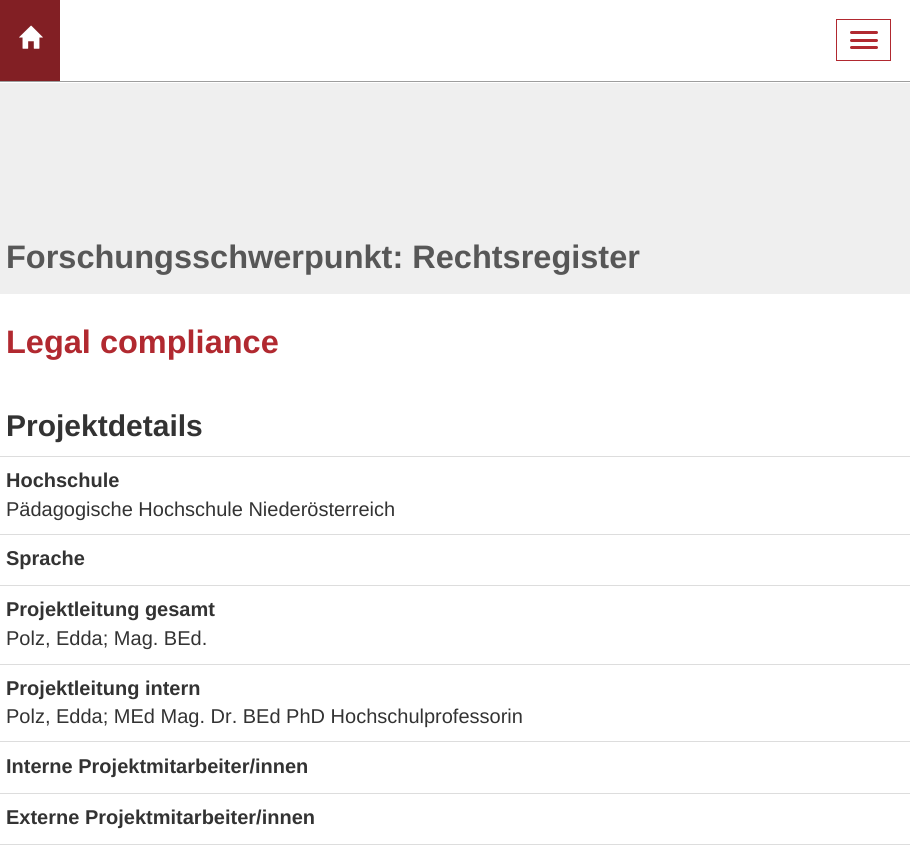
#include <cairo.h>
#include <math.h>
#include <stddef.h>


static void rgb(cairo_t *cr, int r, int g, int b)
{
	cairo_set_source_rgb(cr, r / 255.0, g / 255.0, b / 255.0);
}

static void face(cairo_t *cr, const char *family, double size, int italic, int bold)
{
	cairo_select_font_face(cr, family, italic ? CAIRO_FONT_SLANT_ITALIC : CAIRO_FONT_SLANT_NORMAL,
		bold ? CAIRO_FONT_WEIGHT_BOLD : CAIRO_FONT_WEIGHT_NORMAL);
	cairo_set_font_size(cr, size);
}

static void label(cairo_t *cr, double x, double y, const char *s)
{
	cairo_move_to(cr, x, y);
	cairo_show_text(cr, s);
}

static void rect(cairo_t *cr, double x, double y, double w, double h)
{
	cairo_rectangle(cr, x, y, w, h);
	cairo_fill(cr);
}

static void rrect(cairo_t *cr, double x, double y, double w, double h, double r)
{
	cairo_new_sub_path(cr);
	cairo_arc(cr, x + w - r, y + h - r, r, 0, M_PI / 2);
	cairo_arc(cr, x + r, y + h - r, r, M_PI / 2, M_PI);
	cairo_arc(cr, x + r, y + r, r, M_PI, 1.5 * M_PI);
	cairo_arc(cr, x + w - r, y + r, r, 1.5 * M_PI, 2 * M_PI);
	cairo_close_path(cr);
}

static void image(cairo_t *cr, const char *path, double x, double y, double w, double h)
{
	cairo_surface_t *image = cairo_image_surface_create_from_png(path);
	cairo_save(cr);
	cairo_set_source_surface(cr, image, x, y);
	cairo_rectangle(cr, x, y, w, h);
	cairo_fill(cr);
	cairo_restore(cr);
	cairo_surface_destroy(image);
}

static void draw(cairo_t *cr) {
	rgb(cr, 239, 239, 239);
	cairo_paint(cr);
	rgb(cr, 255, 255, 255);
	rect(cr, 0, 0, 910, 83);
	rgb(cr, 157, 157, 157);
	rect(cr, 0, 81, 910, 1);
	rgb(cr, 130, 31, 36);
	rect(cr, 0, 0, 60, 81);
	image(cr, "image0.png", 19, 25, 24, 24);
	cairo_rectangle(cr, 836.5, 19.5, 54, 41);
	rgb(cr, 177, 41, 48);
	cairo_set_line_width(cr, 1);
	cairo_stroke(cr);
	rrect(cr, 850, 31, 28, 3, 1.5);
	cairo_fill(cr);
	rrect(cr, 850, 39, 28, 3, 1.5);
	cairo_fill(cr);
	rrect(cr, 850, 46, 28, 3, 1.5);
	cairo_fill(cr);
	face(cr, "Liberation Sans", 32.5, 0, 1);
	rgb(cr, 87, 87, 87);
	label(cr, 6, 268, "Forschungsschwerpunkt: Rechtsregister");
	rgb(cr, 255, 255, 255);
	rect(cr, 0, 294, 910, 550);
	rgb(cr, 177, 41, 48);
	label(cr, 6, 353, "Legal compliance");
	face(cr, "Liberation Sans", 30, 0, 1);
	rgb(cr, 51, 51, 51);
	label(cr, 6, 436, "Projektdetails");
	rgb(cr, 221, 221, 221);
	rect(cr, 0, 456, 910, 1);
	rect(cr, 0, 534, 910, 1);
	face(cr, "Liberation Sans", 20, 0, 1);
	rgb(cr, 51, 51, 51);
	label(cr, 6, 487, "Hochschule");
	face(cr, "Liberation Sans", 20, 0, 0);
	label(cr, 6, 516, "Pädagogische Hochschule Niederösterreich");
	rgb(cr, 221, 221, 221);
	rect(cr, 0, 585, 910, 1);
	face(cr, "Liberation Sans", 20, 0, 1);
	rgb(cr, 51, 51, 51);
	label(cr, 6, 565, "Sprache");
	rgb(cr, 221, 221, 221);
	rect(cr, 0, 664, 910, 1);
	rgb(cr, 51, 51, 51);
	label(cr, 6, 616, "Projektleitung gesamt");
	face(cr, "Liberation Sans", 20, 0, 0);
	label(cr, 6, 645, "Polz, Edda; Mag. BEd.");
	rgb(cr, 221, 221, 221);
	rect(cr, 0, 741, 910, 1);
	face(cr, "Liberation Sans", 20, 0, 1);
	rgb(cr, 51, 51, 51);
	label(cr, 6, 695, "Projektleitung intern");
	face(cr, "Liberation Sans", 20, 0, 0);
	label(cr, 6, 723, "Polz, Edda; MEd Mag. Dr. BEd PhD Hochschulprofessorin");
	rgb(cr, 221, 221, 221);
	rect(cr, 0, 793, 910, 1);
	face(cr, "Liberation Sans", 20, 0, 1);
	rgb(cr, 51, 51, 51);
	label(cr, 6, 773, "Interne Projektmitarbeiter/innen");
	rgb(cr, 221, 221, 221);
	rect(cr, 0, 844, 910, 1);
	rgb(cr, 51, 51, 51);
	label(cr, 6, 824, "Externe Projektmitarbeiter/innen");
}

int main(void) {
	cairo_surface_t *surface = cairo_image_surface_create(CAIRO_FORMAT_RGB24, 910, 845);
	cairo_t *cr = cairo_create(surface);
	cairo_font_options_t *options = cairo_font_options_create();
	cairo_font_options_set_hint_metrics(options, CAIRO_HINT_METRICS_OFF);
	cairo_font_options_set_hint_style(options, CAIRO_HINT_STYLE_NONE);
	cairo_set_font_options(cr, options);
	cairo_set_miter_limit(cr, 4);
	draw(cr);
	cairo_surface_write_to_png(surface, "render.png");
	cairo_font_options_destroy(options);
	cairo_destroy(cr);
	cairo_surface_destroy(surface);
	return 0;
}
